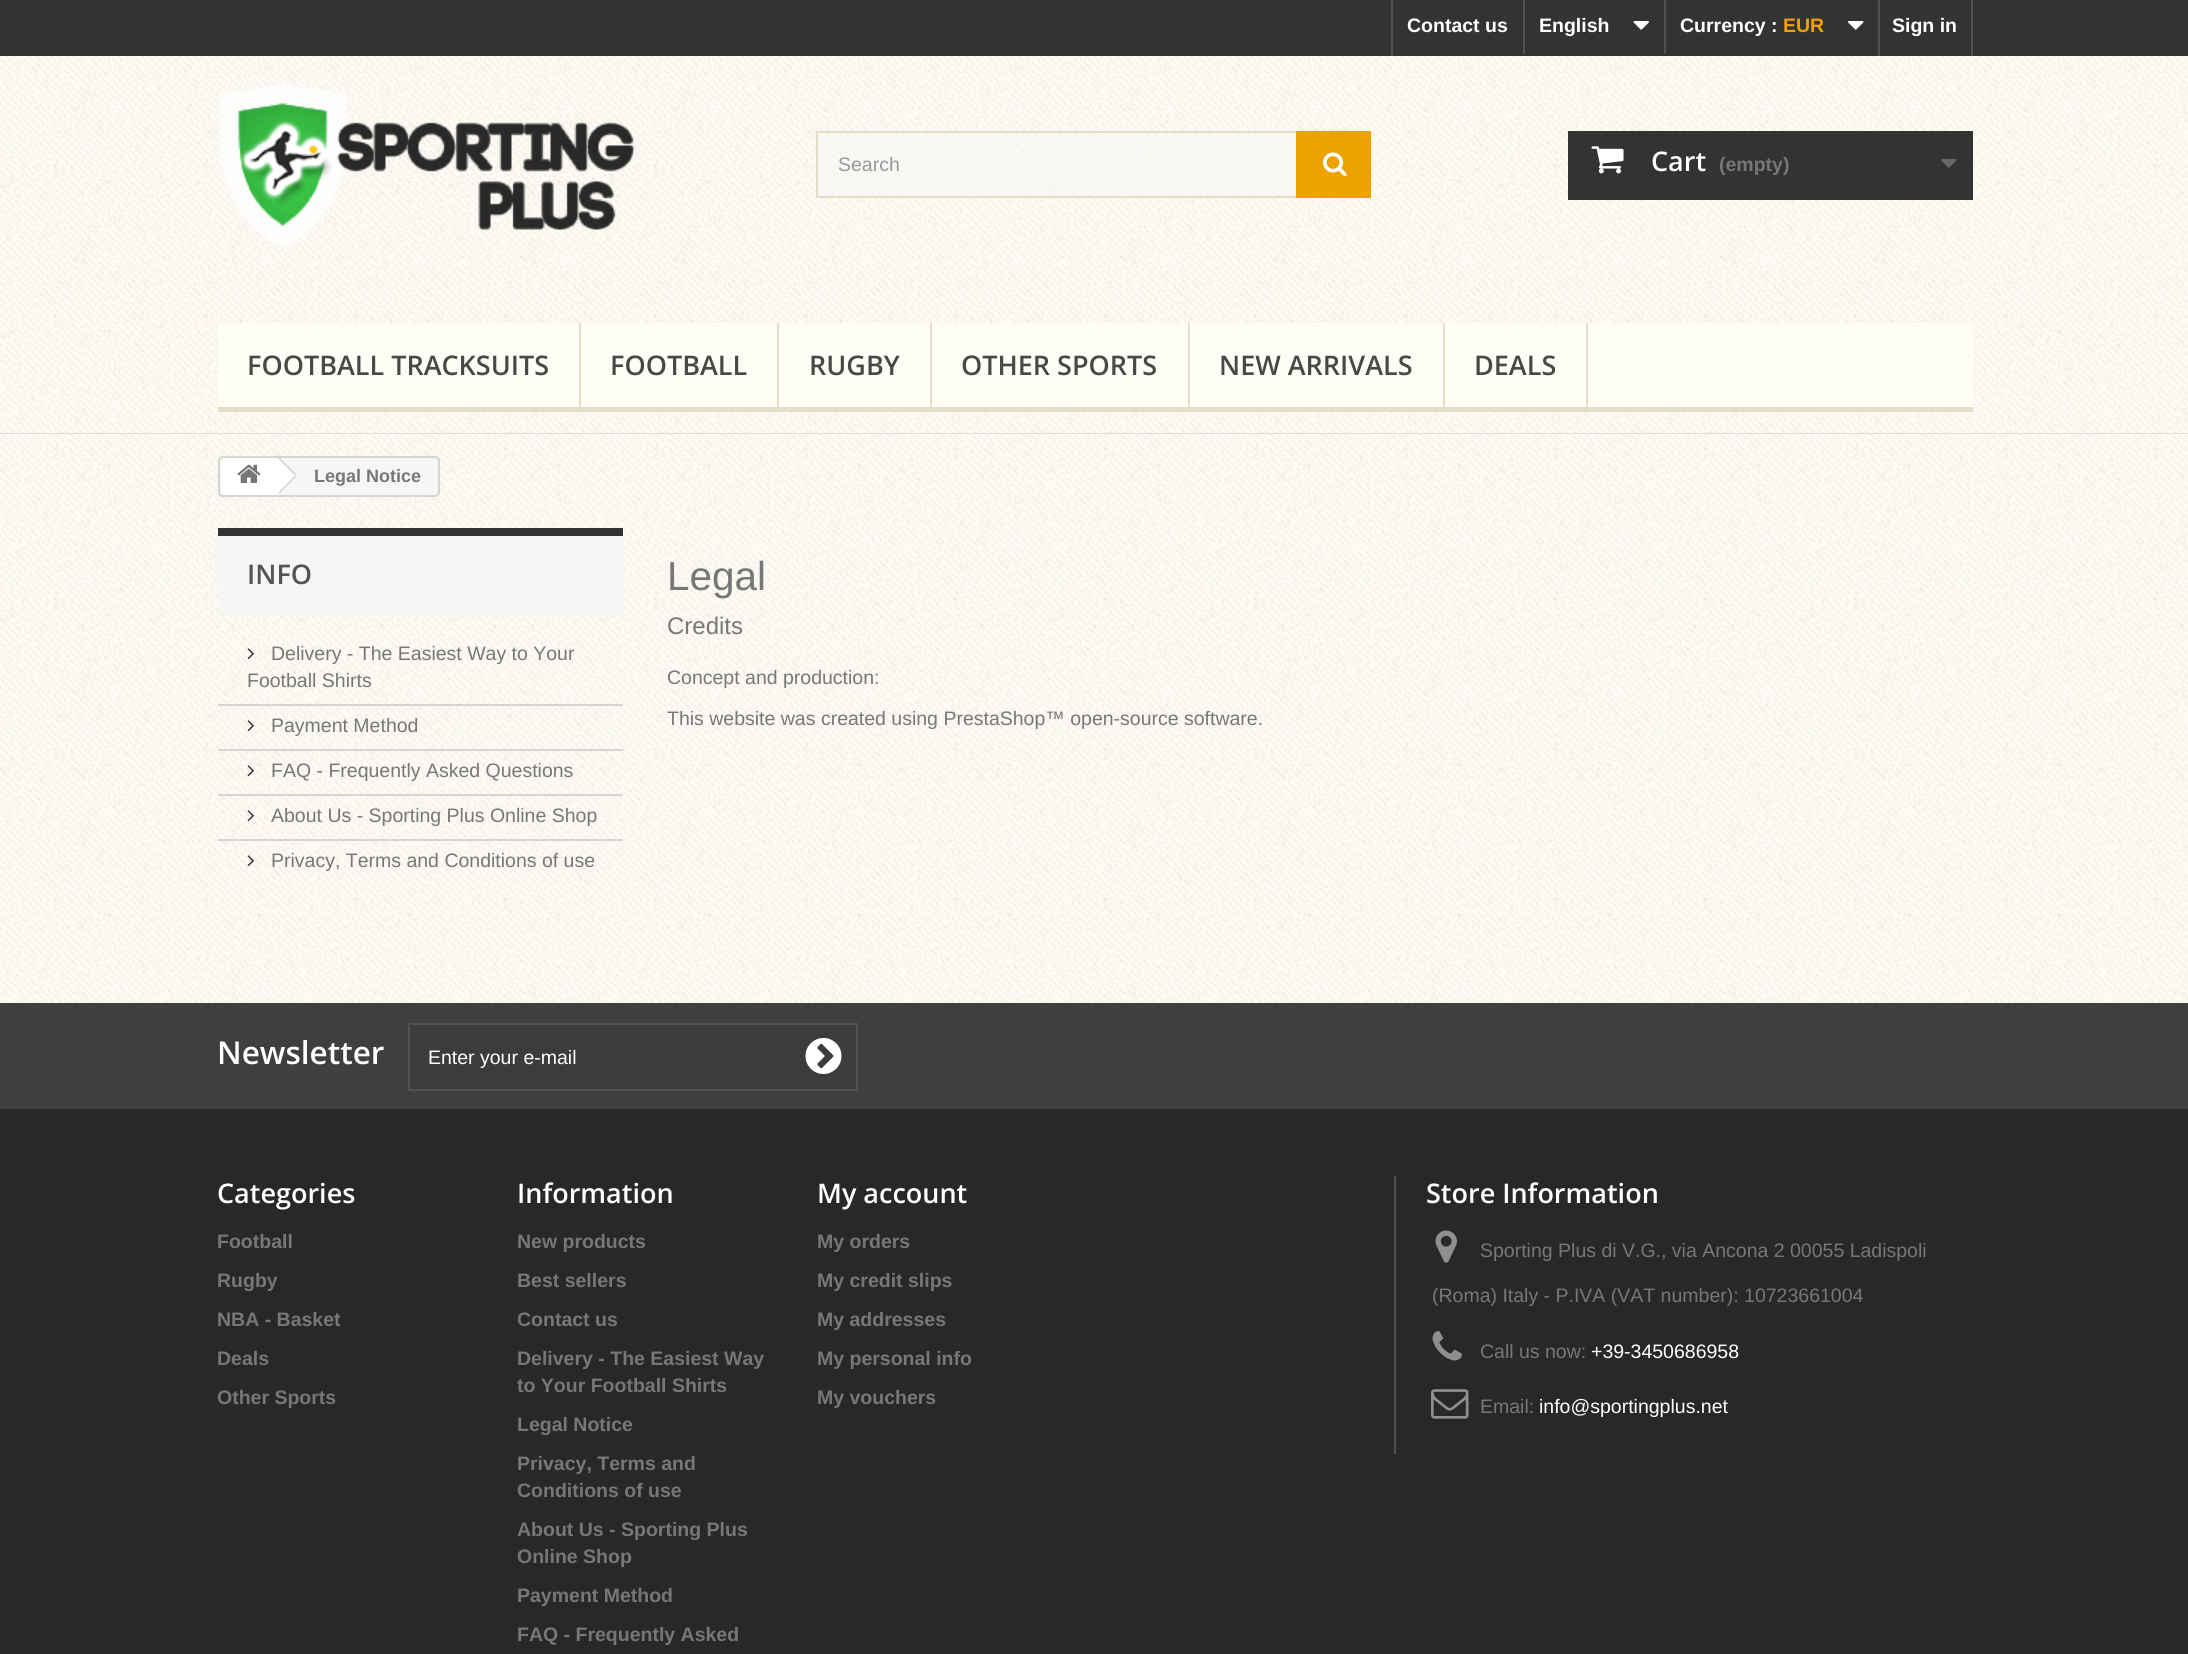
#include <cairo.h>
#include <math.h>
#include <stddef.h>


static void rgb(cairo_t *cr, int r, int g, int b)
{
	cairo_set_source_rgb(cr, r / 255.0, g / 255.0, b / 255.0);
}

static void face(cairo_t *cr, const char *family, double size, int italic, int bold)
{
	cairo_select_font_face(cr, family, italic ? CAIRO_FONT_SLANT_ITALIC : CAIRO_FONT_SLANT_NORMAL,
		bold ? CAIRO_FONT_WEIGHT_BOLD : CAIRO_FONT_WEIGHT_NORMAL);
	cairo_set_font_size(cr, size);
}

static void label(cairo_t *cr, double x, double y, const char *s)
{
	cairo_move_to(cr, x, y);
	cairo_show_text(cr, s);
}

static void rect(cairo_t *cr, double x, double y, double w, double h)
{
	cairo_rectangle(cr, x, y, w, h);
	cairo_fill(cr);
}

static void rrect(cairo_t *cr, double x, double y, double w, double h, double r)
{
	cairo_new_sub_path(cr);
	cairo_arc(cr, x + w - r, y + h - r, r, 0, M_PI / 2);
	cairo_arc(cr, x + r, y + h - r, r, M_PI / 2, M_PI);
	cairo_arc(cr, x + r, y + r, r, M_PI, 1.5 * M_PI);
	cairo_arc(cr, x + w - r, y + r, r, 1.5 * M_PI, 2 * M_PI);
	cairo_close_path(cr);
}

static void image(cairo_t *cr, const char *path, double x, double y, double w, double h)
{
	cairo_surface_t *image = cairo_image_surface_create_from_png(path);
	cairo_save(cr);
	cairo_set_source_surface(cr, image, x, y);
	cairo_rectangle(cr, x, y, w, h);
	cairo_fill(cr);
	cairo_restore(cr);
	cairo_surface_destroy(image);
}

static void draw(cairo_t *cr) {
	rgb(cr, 40, 40, 40);
	cairo_paint(cr);
	image(cr, "image0.png", 0, 56, 2188, 378);
	image(cr, "image8.png", 0, 433, 2188, 570);
	image(cr, "image1.png", 0, 433, 2188, 1);
	rgb(cr, 51, 51, 51);
	rect(cr, 0, 0, 2188, 56);
	rgb(cr, 81, 81, 81);
	rect(cr, 1391, 0, 2, 56);
	face(cr, "Liberation Sans", 19.5, 0, 1);
	rgb(cr, 255, 255, 255);
	label(cr, 1407, 32, "Contact us");
	rgb(cr, 81, 81, 81);
	rect(cr, 1523, 0, 2, 54);
	rgb(cr, 255, 255, 255);
	label(cr, 1539, 32, "English");
	image(cr, "image2.png", 1633, 21, 16, 9);
	rgb(cr, 81, 81, 81);
	rect(cr, 1664, 0, 2, 54);
	rgb(cr, 255, 255, 255);
	label(cr, 1680, 32, "Currency :");
	rgb(cr, 238, 162, 0);
	label(cr, 1783, 32, "EUR");
	image(cr, "image3.png", 1848, 21, 16, 9);
	rgb(cr, 81, 81, 81);
	rect(cr, 1971, 0, 2, 56);
	rect(cr, 1878, 0, 2, 56);
	rgb(cr, 255, 255, 255);
	label(cr, 1892, 32, "Sign in");
	image(cr, "image4.png", 219, 84, 416, 165);
	cairo_set_source_rgba(cr, 0.973, 0.973, 0.973, 0.63);
	rect(cr, 818, 133, 478, 63);
	cairo_rectangle(cr, 817, 132, 553, 65);
	rgb(cr, 226, 222, 200);
	cairo_stroke(cr);
	face(cr, "Liberation Sans", 19.5, 0, 0);
	rgb(cr, 153, 153, 153);
	label(cr, 838, 171, "Search");
	rgb(cr, 238, 162, 0);
	rect(cr, 1296, 131, 75, 67);
	image(cr, "image5.png", 1323, 152, 24, 25);
	rgb(cr, 51, 51, 51);
	rect(cr, 1568, 131, 405, 69);
	image(cr, "image6.png", 1591, 146, 33, 28);
	face(cr, "Open Sans SemiBold", 27, 0, 0);
	rgb(cr, 255, 255, 255);
	label(cr, 1651, 171, "Cart");
	face(cr, "Liberation Sans", 19.5, 0, 1);
	rgb(cr, 119, 119, 119);
	label(cr, 1719, 171, "(empty)");
	image(cr, "image7.png", 1941, 159, 16, 9);
	rgb(cr, 255, 254, 246);
	rect(cr, 218, 323, 1755, 84);
	rgb(cr, 226, 222, 200);
	rect(cr, 218, 407, 1755, 5);
	rect(cr, 579, 323, 2, 88);
	face(cr, "Open Sans SemiBold", 27, 0, 0);
	rgb(cr, 72, 72, 72);
	label(cr, 247, 375, "FOOTBALL TRACKSUITS");
	rgb(cr, 226, 222, 200);
	rect(cr, 777, 323, 2, 88);
	rgb(cr, 72, 72, 72);
	label(cr, 610, 375, "FOOTBALL");
	rgb(cr, 226, 222, 200);
	rect(cr, 930, 323, 2, 88);
	rgb(cr, 72, 72, 72);
	label(cr, 809, 375, "RUGBY");
	rgb(cr, 226, 222, 200);
	rect(cr, 1188, 323, 2, 88);
	rgb(cr, 72, 72, 72);
	label(cr, 961, 375, "OTHER SPORTS");
	rgb(cr, 226, 222, 200);
	rect(cr, 1443, 323, 2, 88);
	rgb(cr, 72, 72, 72);
	label(cr, 1219, 375, "NEW ARRIVALS");
	rgb(cr, 226, 222, 200);
	rect(cr, 1586, 323, 2, 88);
	rgb(cr, 72, 72, 72);
	label(cr, 1474, 375, "DEALS");
	rgb(cr, 246, 246, 246);
	rrect(cr, 219, 457, 220, 39, 4);
	cairo_fill_preserve(cr);
	rgb(cr, 214, 212, 212);
	cairo_stroke(cr);
	rgb(cr, 255, 255, 255);
	cairo_new_path(cr);
	cairo_move_to(cr, 226, 458);
	cairo_line_to(cr, 278, 458);
	cairo_line_to(cr, 278, 495);
	cairo_line_to(cr, 226, 495);
	cairo_curve_to(cr, 223, 495, 221, 493, 221, 490);
	cairo_line_to(cr, 221, 463);
	cairo_curve_to(cr, 221, 460, 223, 458, 226, 458);
	cairo_close_path(cr);
	cairo_fill(cr);
	cairo_new_path(cr);
	cairo_move_to(cr, 280.5, 458.5);
	cairo_line_to(cr, 279.5, 458);
	cairo_line_to(cr, 277, 458);
	cairo_line_to(cr, 276, 458.5);
	cairo_line_to(cr, 261.5, 473.5);
	cairo_curve_to(cr, 260, 474.5, 260, 476.5, 261.5, 477.5);
	cairo_line_to(cr, 276, 492.5);
	cairo_curve_to(cr, 277.5, 493.5, 279, 493.5, 280.5, 492.5);
	cairo_line_to(cr, 295, 477.5);
	cairo_curve_to(cr, 296.5, 476.5, 296.5, 474.5, 295, 473.5);
	cairo_close_path(cr);
	cairo_fill(cr);
	image(cr, "image9.png", 237, 464, 24, 19);
	rgb(cr, 214, 212, 212);
	cairo_new_path(cr);
	cairo_move_to(cr, 280, 458);
	cairo_line_to(cr, 296.5, 474.5);
	cairo_line_to(cr, 295, 475.5);
	cairo_line_to(cr, 278, 458.5);
	cairo_line_to(cr, 279, 458);
	cairo_close_path(cr);
	cairo_fill(cr);
	cairo_new_path(cr);
	cairo_move_to(cr, 295, 475.5);
	cairo_line_to(cr, 296.5, 476.5);
	cairo_line_to(cr, 279.5, 493.5);
	cairo_line_to(cr, 278.5, 492.5);
	cairo_close_path(cr);
	cairo_fill(cr);
	face(cr, "Liberation Sans", 18, 0, 1);
	rgb(cr, 119, 119, 119);
	label(cr, 314, 482, "Legal Notice");
	rgb(cr, 246, 246, 246);
	rect(cr, 218, 536, 405, 79);
	rgb(cr, 51, 51, 51);
	rect(cr, 218, 528, 405, 8);
	face(cr, "Open Sans SemiBold", 27, 0, 0);
	rgb(cr, 85, 84, 84);
	label(cr, 247, 584, "INFO");
	image(cr, "image10.png", 247, 648, 7, 12);
	face(cr, "Liberation Sans", 19.5, 0, 0);
	rgb(cr, 119, 119, 119);
	label(cr, 271, 660, "Delivery - The Easiest Way to Your");
	label(cr, 247, 687, "Football Shirts");
	rgb(cr, 214, 212, 212);
	rect(cr, 218, 704, 405, 2);
	image(cr, "image11.png", 247, 720, 7, 12);
	rgb(cr, 119, 119, 119);
	label(cr, 271, 732, "Payment Method");
	rgb(cr, 214, 212, 212);
	rect(cr, 218, 749, 405, 2);
	image(cr, "image12.png", 247, 765, 7, 12);
	rgb(cr, 119, 119, 119);
	label(cr, 271, 777, "FAQ - Frequently Asked Questions");
	rgb(cr, 214, 212, 212);
	rect(cr, 218, 794, 405, 2);
	image(cr, "image13.png", 247, 810, 7, 12);
	rgb(cr, 119, 119, 119);
	label(cr, 271, 822, "About Us - Sporting Plus Online Shop");
	rgb(cr, 214, 212, 212);
	rect(cr, 218, 839, 405, 2);
	image(cr, "image14.png", 247, 855, 7, 12);
	rgb(cr, 119, 119, 119);
	label(cr, 271, 867, "Privacy, Terms and Conditions of use");
	face(cr, "Liberation Sans", 40.5, 0, 0);
	label(cr, 667, 590, "Legal");
	face(cr, "Liberation Sans", 24, 0, 0);
	label(cr, 667, 634, "Credits");
	face(cr, "Liberation Sans", 19.5, 0, 0);
	label(cr, 667, 684, "Concept and production:");
	label(cr, 667, 725, "This website was created using PrestaShop™ open-source software.");
	rgb(cr, 63, 63, 63);
	rect(cr, 0, 1003, 2188, 106);
	face(cr, "Open Sans SemiBold", 31.5, 0, 0);
	rgb(cr, 255, 255, 255);
	label(cr, 217, 1064, "Newsletter");
	rgb(cr, 60, 60, 60);
	cairo_rectangle(cr, 409, 1024, 448, 66);
	cairo_fill_preserve(cr);
	rgb(cr, 81, 81, 81);
	cairo_stroke(cr);
	face(cr, "Liberation Sans", 19.5, 0, 0);
	rgb(cr, 255, 255, 255);
	label(cr, 428, 1064, "Enter your e-mail");
	image(cr, "image15.png", 805, 1038, 37, 36);
	face(cr, "Open Sans SemiBold", 27, 0, 0);
	label(cr, 217, 1203, "Categories");
	face(cr, "Liberation Sans", 19.5, 0, 1);
	rgb(cr, 119, 119, 119);
	label(cr, 217, 1248, "Football");
	label(cr, 217, 1287, "Rugby");
	label(cr, 217, 1326, "NBA - Basket");
	label(cr, 217, 1365, "Deals");
	label(cr, 217, 1404, "Other Sports");
	face(cr, "Open Sans SemiBold", 27, 0, 0);
	rgb(cr, 255, 255, 255);
	label(cr, 517, 1203, "Information");
	face(cr, "Liberation Sans", 19.5, 0, 1);
	rgb(cr, 119, 119, 119);
	label(cr, 517, 1248, "New products");
	label(cr, 517, 1287, "Best sellers");
	label(cr, 517, 1326, "Contact us");
	label(cr, 517, 1365, "Delivery - The Easiest Way");
	label(cr, 517, 1392, "to Your Football Shirts");
	label(cr, 517, 1431, "Legal Notice");
	label(cr, 517, 1470, "Privacy, Terms and");
	label(cr, 517, 1497, "Conditions of use");
	label(cr, 517, 1536, "About Us - Sporting Plus");
	label(cr, 517, 1563, "Online Shop");
	label(cr, 517, 1602, "Payment Method");
	label(cr, 517, 1641, "FAQ - Frequently Asked");
	face(cr, "Open Sans SemiBold", 27, 0, 0);
	rgb(cr, 255, 255, 255);
	label(cr, 817, 1203, "My account");
	face(cr, "Liberation Sans", 19.5, 0, 1);
	rgb(cr, 119, 119, 119);
	label(cr, 817, 1248, "My orders");
	label(cr, 817, 1287, "My credit slips");
	label(cr, 817, 1326, "My addresses");
	label(cr, 817, 1365, "My personal info");
	label(cr, 817, 1404, "My vouchers");
	rgb(cr, 81, 81, 81);
	rect(cr, 1394, 1176, 2, 278);
	face(cr, "Open Sans SemiBold", 27, 0, 0);
	rgb(cr, 255, 255, 255);
	label(cr, 1426, 1203, "Store Information");
	image(cr, "image16.png", 1435, 1230, 22, 33);
	face(cr, "Liberation Sans", 19.5, 0, 0);
	rgb(cr, 119, 119, 119);
	label(cr, 1480, 1257, "Sporting Plus di V.G., via Ancona 2 00055 Ladispoli");
	label(cr, 1432, 1302, "(Roma) Italy - P.IVA (VAT number): 10723661004");
	image(cr, "image17.png", 1432, 1331, 30, 30);
	label(cr, 1480, 1358, "Call us now:");
	rgb(cr, 255, 255, 255);
	label(cr, 1591, 1358, "+39-3450686958");
	image(cr, "image18.png", 1431, 1389, 38, 30);
	rgb(cr, 119, 119, 119);
	label(cr, 1480, 1413, "Email:");
	rgb(cr, 255, 255, 255);
	label(cr, 1539, 1413, "info@sportingplus.net");
}

int main(void) {
	cairo_surface_t *surface = cairo_image_surface_create(CAIRO_FORMAT_RGB24, 2188, 1654);
	cairo_t *cr = cairo_create(surface);
	cairo_font_options_t *options = cairo_font_options_create();
	cairo_font_options_set_hint_metrics(options, CAIRO_HINT_METRICS_OFF);
	cairo_font_options_set_hint_style(options, CAIRO_HINT_STYLE_NONE);
	cairo_set_font_options(cr, options);
	cairo_set_miter_limit(cr, 4);
	draw(cr);
	cairo_surface_write_to_png(surface, "render.png");
	cairo_font_options_destroy(options);
	cairo_destroy(cr);
	cairo_surface_destroy(surface);
	return 0;
}
